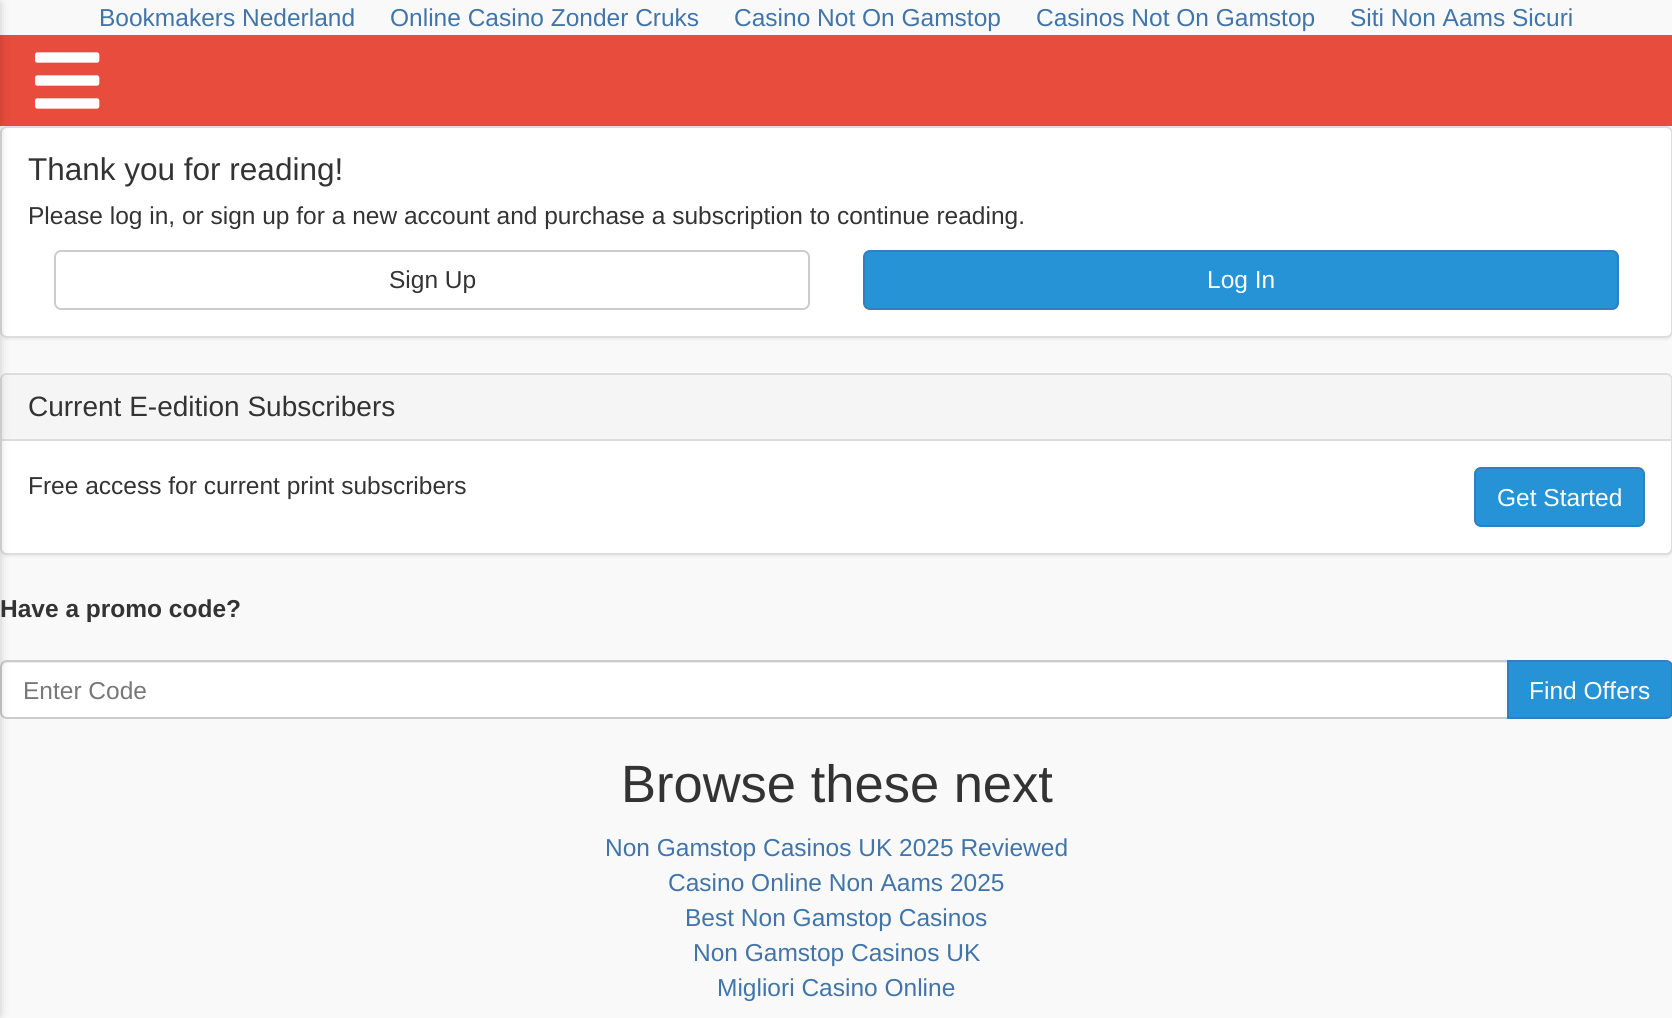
#include <cairo.h>
#include <math.h>
#include <stddef.h>


static void rgb(cairo_t *cr, int r, int g, int b)
{
	cairo_set_source_rgb(cr, r / 255.0, g / 255.0, b / 255.0);
}

static void face(cairo_t *cr, const char *family, double size, int italic, int bold)
{
	cairo_select_font_face(cr, family, italic ? CAIRO_FONT_SLANT_ITALIC : CAIRO_FONT_SLANT_NORMAL,
		bold ? CAIRO_FONT_WEIGHT_BOLD : CAIRO_FONT_WEIGHT_NORMAL);
	cairo_set_font_size(cr, size);
}

static void label(cairo_t *cr, double x, double y, const char *s)
{
	cairo_move_to(cr, x, y);
	cairo_show_text(cr, s);
}

static void rect(cairo_t *cr, double x, double y, double w, double h)
{
	cairo_rectangle(cr, x, y, w, h);
	cairo_fill(cr);
}

static void rrect(cairo_t *cr, double x, double y, double w, double h, double r)
{
	cairo_new_sub_path(cr);
	cairo_arc(cr, x + w - r, y + h - r, r, 0, M_PI / 2);
	cairo_arc(cr, x + r, y + h - r, r, M_PI / 2, M_PI);
	cairo_arc(cr, x + r, y + r, r, M_PI, 1.5 * M_PI);
	cairo_arc(cr, x + w - r, y + r, r, 1.5 * M_PI, 2 * M_PI);
	cairo_close_path(cr);
}

static void soft_shadow(cairo_t *cr, double x, double y, double w, double h, double r, double blur, double alpha)
{
	cairo_push_group_with_content(cr, CAIRO_CONTENT_ALPHA);
	cairo_set_operator(cr, CAIRO_OPERATOR_SOURCE);
	for (int i = 15; i >= -15 && fmin(w, h) + blur * i / 3 > 0; i -= 2) {
		double e = blur * i / 6;
		cairo_set_source_rgba(cr, 0, 0, 0, alpha * erfc((i - 1) / 8.5) / 2);
		rrect(cr, x - e, y - e, w + 2 * e, h + 2 * e, fmax(0, fmin(r + e + blur * .6, fmin(w, h) / 2 + e)));
		cairo_fill(cr);
	}
	cairo_pattern_t *soft = cairo_pop_group(cr);
	cairo_mask(cr, soft);
	cairo_pattern_destroy(soft);
}

static void image(cairo_t *cr, const char *path, double x, double y, double w, double h)
{
	cairo_surface_t *image = cairo_image_surface_create_from_png(path);
	cairo_save(cr);
	cairo_set_source_surface(cr, image, x, y);
	cairo_rectangle(cr, x, y, w, h);
	cairo_fill(cr);
	cairo_restore(cr);
	cairo_surface_destroy(image);
}

static void draw(cairo_t *cr) {
	rgb(cr, 249, 249, 249);
	cairo_paint(cr);
	face(cr, "Liberation Sans", 24.5, 0, 0);
	rgb(cr, 65, 117, 170);
	label(cr, 99, 26, "Bookmakers Nederland");
	label(cr, 390, 26, "Online Casino Zonder Cruks");
	label(cr, 734, 26, "Casino Not On Gamstop");
	label(cr, 1036, 26, "Casinos Not On Gamstop");
	label(cr, 1350, 26, "Siti Non Aams Sicuri");
	rgb(cr, 0, 0, 0);
	soft_shadow(cr, 0, 128, 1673, 212, 7, 1, 0.05);
	rgb(cr, 231, 76, 60);
	rect(cr, 0, 35, 1672, 91);
	rgb(cr, 255, 255, 255);
	rrect(cr, 1, 127, 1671, 210, 6);
	cairo_fill_preserve(cr);
	rgb(cr, 221, 221, 221);
	cairo_stroke(cr);
	rgb(cr, 0, 0, 0);
	soft_shadow(cr, 0, 375, 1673, 182, 7, 1, 0.05);
	rgb(cr, 255, 255, 255);
	rrect(cr, 1, 374, 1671, 180, 6);
	cairo_fill_preserve(cr);
	rgb(cr, 221, 221, 221);
	cairo_stroke(cr);
	rgb(cr, 245, 245, 245);
	cairo_new_path(cr);
	cairo_move_to(cr, 7, 375);
	cairo_line_to(cr, 1666, 375);
	cairo_curve_to(cr, 1669, 375, 1671, 377, 1671, 380);
	cairo_line_to(cr, 1671, 441);
	cairo_line_to(cr, 2, 441);
	cairo_line_to(cr, 2, 380);
	cairo_curve_to(cr, 2, 377, 4, 375, 7, 375);
	cairo_close_path(cr);
	cairo_fill(cr);
	rgb(cr, 221, 221, 221);
	rect(cr, 2, 439, 1669, 2);
	rgb(cr, 255, 255, 255);
	cairo_new_path(cr);
	cairo_move_to(cr, 7, 660);
	cairo_line_to(cr, 1509, 660);
	cairo_line_to(cr, 1509, 719);
	cairo_line_to(cr, 7, 719);
	cairo_curve_to(cr, 3, 719, 0, 716, 0, 712);
	cairo_line_to(cr, 0, 667);
	cairo_curve_to(cr, 0, 663, 3, 660, 7, 660);
	cairo_close_path(cr);
	cairo_fill(cr);
	rgb(cr, 236, 236, 236);
	cairo_new_path(cr);
	cairo_move_to(cr, 7, 663);
	cairo_line_to(cr, 1507, 663);
	cairo_line_to(cr, 1507, 662);
	cairo_line_to(cr, 7, 662);
	cairo_curve_to(cr, 4, 662, 2, 665, 2, 668);
	cairo_curve_to(cr, 2, 666, 4, 663, 7, 663);
	cairo_close_path(cr);
	cairo_fill(cr);
	cairo_new_path(cr);
	cairo_move_to(cr, 7, 661);
	cairo_line_to(cr, 1508, 661);
	cairo_line_to(cr, 1508, 718);
	cairo_line_to(cr, 7, 718);
	cairo_curve_to(cr, 3.5, 718, 1, 715.5, 1, 712);
	cairo_line_to(cr, 1, 667);
	cairo_curve_to(cr, 1, 663.5, 3.5, 661, 7, 661);
	cairo_close_path(cr);
	rgb(cr, 204, 204, 204);
	cairo_stroke(cr);
	rgb(cr, 0, 0, 0);
	soft_shadow(cr, -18, 4, 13, 1011, 0, 6, 0.53);
	image(cr, "image0.png", 35, 52, 65, 57);
	face(cr, "Liberation Sans", 31.5, 0, 0);
	rgb(cr, 51, 51, 51);
	label(cr, 28, 180, "Thank you for reading!");
	face(cr, "Liberation Sans", 24.5, 0, 0);
	label(cr, 28, 224, "Please log in, or sign up for a new account and purchase a subscription to continue reading.");
	rrect(cr, 55, 251, 754, 58, 6);
	rgb(cr, 204, 204, 204);
	cairo_stroke(cr);
	rgb(cr, 51, 51, 51);
	label(cr, 389, 288, "Sign Up");
	rgb(cr, 37, 147, 214);
	rrect(cr, 864, 251, 754, 58, 6);
	cairo_fill_preserve(cr);
	rgb(cr, 53, 126, 189);
	cairo_stroke(cr);
	rgb(cr, 255, 255, 255);
	label(cr, 1207, 288, "Log In");
	face(cr, "Liberation Sans", 28, 0, 0);
	rgb(cr, 51, 51, 51);
	label(cr, 28, 416, "Current E-edition Subscribers");
	face(cr, "Liberation Sans", 24.5, 0, 0);
	label(cr, 28, 494, "Free access for current print subscribers");
	rgb(cr, 37, 147, 214);
	rrect(cr, 1475, 468, 169, 58, 6);
	cairo_fill_preserve(cr);
	rgb(cr, 53, 126, 189);
	cairo_stroke(cr);
	rgb(cr, 255, 255, 255);
	label(cr, 1497, 506, "Get Started");
	face(cr, "Liberation Sans", 24.5, 0, 1);
	rgb(cr, 51, 51, 51);
	label(cr, 0, 617, "Have a promo code?");
	face(cr, "Liberation Sans", 24.5, 0, 0);
	rgb(cr, 119, 119, 119);
	label(cr, 23, 699, "Enter Code");
	rgb(cr, 37, 147, 214);
	cairo_new_path(cr);
	cairo_move_to(cr, 1508, 661);
	cairo_line_to(cr, 1666, 661);
	cairo_curve_to(cr, 1669.5, 661, 1672, 663.5, 1672, 667);
	cairo_line_to(cr, 1672, 712);
	cairo_curve_to(cr, 1672, 715.5, 1669.5, 718, 1666, 718);
	cairo_line_to(cr, 1508, 718);
	cairo_close_path(cr);
	cairo_fill_preserve(cr);
	rgb(cr, 53, 126, 189);
	cairo_stroke(cr);
	rgb(cr, 255, 255, 255);
	label(cr, 1529, 699, "Find Offers");
	face(cr, "Liberation Sans", 52.5, 0, 0);
	rgb(cr, 51, 51, 51);
	label(cr, 621, 802, "Browse these next");
	face(cr, "Liberation Sans", 24.5, 0, 0);
	rgb(cr, 65, 117, 170);
	label(cr, 605, 856, "Non Gamstop Casinos UK 2025 Reviewed");
	label(cr, 668, 891, "Casino Online Non Aams 2025");
	label(cr, 685, 926, "Best Non Gamstop Casinos");
	label(cr, 693, 961, "Non Gamstop Casinos UK");
	label(cr, 717, 996, "Migliori Casino Online");
}

int main(void) {
	cairo_surface_t *surface = cairo_image_surface_create(CAIRO_FORMAT_RGB24, 1672, 1018);
	cairo_t *cr = cairo_create(surface);
	cairo_font_options_t *options = cairo_font_options_create();
	cairo_font_options_set_hint_metrics(options, CAIRO_HINT_METRICS_OFF);
	cairo_font_options_set_hint_style(options, CAIRO_HINT_STYLE_NONE);
	cairo_set_font_options(cr, options);
	cairo_set_miter_limit(cr, 4);
	draw(cr);
	cairo_surface_write_to_png(surface, "render.png");
	cairo_font_options_destroy(options);
	cairo_destroy(cr);
	cairo_surface_destroy(surface);
	return 0;
}
